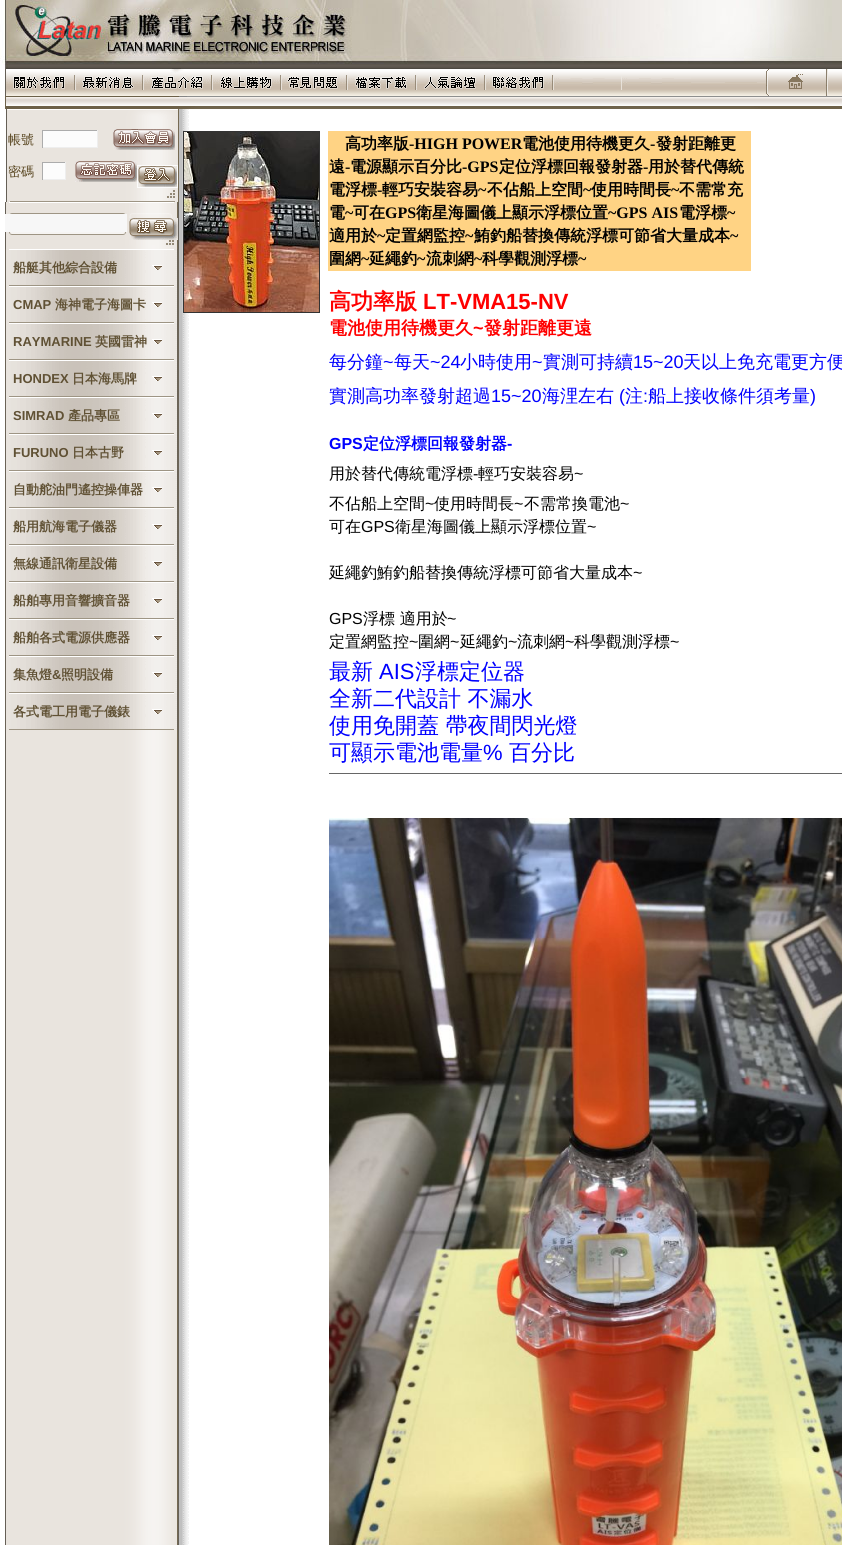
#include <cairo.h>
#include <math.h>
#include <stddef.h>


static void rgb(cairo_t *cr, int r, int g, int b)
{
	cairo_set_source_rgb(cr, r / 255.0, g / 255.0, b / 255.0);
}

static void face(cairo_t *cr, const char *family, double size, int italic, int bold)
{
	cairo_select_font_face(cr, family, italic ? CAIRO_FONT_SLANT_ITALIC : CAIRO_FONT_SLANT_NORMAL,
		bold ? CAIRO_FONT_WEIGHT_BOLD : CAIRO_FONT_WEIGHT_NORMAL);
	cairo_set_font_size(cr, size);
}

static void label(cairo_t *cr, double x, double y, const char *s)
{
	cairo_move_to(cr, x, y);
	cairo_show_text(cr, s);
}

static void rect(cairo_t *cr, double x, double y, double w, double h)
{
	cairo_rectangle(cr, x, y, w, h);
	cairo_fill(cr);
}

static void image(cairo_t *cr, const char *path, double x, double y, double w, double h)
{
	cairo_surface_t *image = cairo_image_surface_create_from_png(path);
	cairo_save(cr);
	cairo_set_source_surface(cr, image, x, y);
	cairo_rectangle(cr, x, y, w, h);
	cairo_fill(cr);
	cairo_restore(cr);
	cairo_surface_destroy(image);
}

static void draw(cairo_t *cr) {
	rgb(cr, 255, 255, 255);
	cairo_paint(cr);
	image(cr, "image0.png", 0, 0, 842, 68);
	image(cr, "image1.png", 0, 68, 75, 28);
	image(cr, "image2.png", 75, 68, 68, 28);
	image(cr, "image3.png", 143, 68, 69, 28);
	image(cr, "image4.png", 212, 68, 69, 28);
	image(cr, "image5.png", 281, 68, 66, 28);
	image(cr, "image6.png", 347, 68, 69, 28);
	image(cr, "image7.png", 416, 68, 69, 28);
	image(cr, "image8.png", 485, 68, 68, 28);
	image(cr, "image9.png", 553, 68, 68, 28);
	image(cr, "image10.png", 621, 68, 70, 28);
	image(cr, "image11.png", 691, 68, 75, 28);
	image(cr, "image12.png", 766, 68, 61, 28);
	image(cr, "image13.png", 827, 68, 15, 28);
	image(cr, "image14.png", 0, 96, 842, 13);
	image(cr, "image15.png", 5, 202, 174, 1343);
	image(cr, "image16.png", 5, 109, 174, 93);
	face(cr, "WenQuanYi Zen Hei Medium", 13, 0, 0);
	rgb(cr, 88, 69, 31);
	label(cr, 8, 144, "帳號");
	rgb(cr, 252, 252, 252);
	rect(cr, 43, 131, 54, 16);
	rgb(cr, 172, 172, 172);
	rect(cr, 42, 130, 56, 1);
	rgb(cr, 238, 238, 238);
	rect(cr, 97, 130, 1, 18);
	rect(cr, 42, 147, 56, 1);
	rgb(cr, 172, 172, 172);
	rect(cr, 42, 130, 1, 18);
	image(cr, "image17.png", 113, 129, 62, 21);
	rgb(cr, 88, 69, 31);
	label(cr, 8, 176, "密碼");
	rgb(cr, 252, 252, 252);
	rect(cr, 43, 163, 22, 16);
	rgb(cr, 172, 172, 172);
	rect(cr, 42, 162, 24, 1);
	rgb(cr, 238, 238, 238);
	rect(cr, 65, 162, 1, 18);
	rect(cr, 42, 179, 24, 1);
	rgb(cr, 172, 172, 172);
	rect(cr, 42, 162, 1, 18);
	image(cr, "image18.png", 75, 161, 62, 21);
	rgb(cr, 252, 252, 252);
	rect(cr, 137, 165, 41, 23);
	image(cr, "image19.png", 138, 166, 39, 21);
	image(cr, "image20.png", 9, 202, 165, 43);
	rgb(cr, 247, 247, 247);
	rect(cr, 5, 214, 122, 18);
	image(cr, "image21.png", 129, 218, 49, 22);
	image(cr, "image22.png", 5, 249, 174, 37);
	face(cr, "WenQuanYi Zen Hei", 13, 0, 1);
	rgb(cr, 96, 81, 52);
	label(cr, 13, 272, "船艇其他綜合設備");
	image(cr, "image23.png", 152, 265, 10, 5);
	image(cr, "image22.png", 5, 286, 174, 37);
	face(cr, "Liberation Sans", 13, 0, 1);
	label(cr, 13, 309, "CMAP");
	face(cr, "WenQuanYi Zen Hei", 13, 0, 1);
	label(cr, 55, 309, "海神電子海圖卡");
	image(cr, "image23.png", 152, 302, 10, 5);
	image(cr, "image22.png", 5, 323, 174, 37);
	face(cr, "Liberation Sans", 13, 0, 1);
	label(cr, 13, 346, "RAYMARINE");
	face(cr, "WenQuanYi Zen Hei", 13, 0, 1);
	label(cr, 95, 346, "英國雷神");
	image(cr, "image23.png", 152, 339, 10, 5);
	image(cr, "image22.png", 5, 360, 174, 37);
	face(cr, "Liberation Sans", 13, 0, 1);
	label(cr, 13, 383, "HONDEX");
	face(cr, "WenQuanYi Zen Hei", 13, 0, 1);
	label(cr, 72, 383, "日本海馬牌");
	image(cr, "image23.png", 152, 376, 10, 5);
	image(cr, "image22.png", 5, 397, 174, 37);
	face(cr, "Liberation Sans", 13, 0, 1);
	label(cr, 13, 420, "SIMRAD");
	face(cr, "WenQuanYi Zen Hei", 13, 0, 1);
	label(cr, 68, 420, "產品專區");
	image(cr, "image23.png", 152, 413, 10, 5);
	image(cr, "image22.png", 5, 434, 174, 37);
	face(cr, "Liberation Sans", 13, 0, 1);
	label(cr, 13, 457, "FURUNO");
	face(cr, "WenQuanYi Zen Hei", 13, 0, 1);
	label(cr, 72, 457, "日本古野");
	image(cr, "image23.png", 152, 450, 10, 5);
	image(cr, "image22.png", 5, 471, 174, 37);
	label(cr, 13, 494, "自動舵油門遙控操俥器");
	image(cr, "image23.png", 152, 487, 10, 5);
	image(cr, "image22.png", 5, 508, 174, 37);
	label(cr, 13, 531, "船用航海電子儀器");
	image(cr, "image23.png", 152, 524, 10, 5);
	image(cr, "image22.png", 5, 545, 174, 37);
	label(cr, 13, 568, "無線通訊衛星設備");
	image(cr, "image23.png", 152, 561, 10, 5);
	image(cr, "image22.png", 5, 582, 174, 37);
	label(cr, 13, 605, "船舶專用音響擴音器");
	image(cr, "image23.png", 152, 598, 10, 5);
	image(cr, "image22.png", 5, 619, 174, 37);
	label(cr, 13, 642, "船舶各式電源供應器");
	image(cr, "image23.png", 152, 635, 10, 5);
	image(cr, "image22.png", 5, 656, 174, 37);
	label(cr, 13, 679, "集魚燈");
	face(cr, "Liberation Sans", 13, 0, 1);
	label(cr, 52, 679, "&");
	face(cr, "WenQuanYi Zen Hei", 13, 0, 1);
	label(cr, 61, 679, "照明設備");
	image(cr, "image23.png", 152, 672, 10, 5);
	image(cr, "image22.png", 5, 693, 174, 37);
	label(cr, 13, 716, "各式電工用電子儀錶");
	image(cr, "image23.png", 152, 709, 10, 5);
	image(cr, "image24.png", 179, 109, 10, 1436);
	cairo_rectangle(cr, 183.5, 131.5, 136, 181);
	rgb(cr, 51, 51, 51);
	cairo_set_line_width(cr, 1);
	cairo_stroke(cr);
	image(cr, "image25.png", 184, 132, 135, 180);
	rgb(cr, 255, 211, 132);
	rect(cr, 328, 131, 423, 140);
	face(cr, "WenQuanYi Zen Hei", 16, 0, 1);
	rgb(cr, 0, 0, 0);
	label(cr, 345, 149, "高功率版");
	face(cr, "Liberation Serif", 16, 0, 1);
	label(cr, 409, 149, "-HIGH POWER");
	face(cr, "WenQuanYi Zen Hei", 16, 0, 1);
	label(cr, 522, 149, "電池使用待機更久");
	face(cr, "Liberation Serif", 16, 0, 1);
	label(cr, 650, 149, "-");
	face(cr, "WenQuanYi Zen Hei", 16, 0, 1);
	label(cr, 656, 149, "發射距離更");
	label(cr, 329, 172, "遠");
	face(cr, "Liberation Serif", 16, 0, 1);
	label(cr, 345, 172, "-");
	face(cr, "WenQuanYi Zen Hei", 16, 0, 1);
	label(cr, 350, 172, "電源顯示百分比");
	face(cr, "Liberation Serif", 16, 0, 1);
	label(cr, 462, 172, "-GPS");
	face(cr, "WenQuanYi Zen Hei", 16, 0, 1);
	label(cr, 499, 172, "定位浮標回報發射器");
	face(cr, "Liberation Serif", 16, 0, 1);
	label(cr, 643, 172, "-");
	face(cr, "WenQuanYi Zen Hei", 16, 0, 1);
	label(cr, 648, 172, "用於替代傳統");
	label(cr, 329, 195, "電浮標");
	face(cr, "Liberation Serif", 16, 0, 1);
	label(cr, 377, 195, "-");
	face(cr, "WenQuanYi Zen Hei", 16, 0, 1);
	label(cr, 382, 195, "輕巧安裝容易");
	face(cr, "Liberation Serif", 16, 0, 1);
	label(cr, 478, 195, "~");
	face(cr, "WenQuanYi Zen Hei", 16, 0, 1);
	label(cr, 487, 195, "不佔船上空間");
	face(cr, "Liberation Serif", 16, 0, 1);
	label(cr, 583, 195, "~");
	face(cr, "WenQuanYi Zen Hei", 16, 0, 1);
	label(cr, 591, 195, "使用時間長");
	face(cr, "Liberation Serif", 16, 0, 1);
	label(cr, 671, 195, "~");
	face(cr, "WenQuanYi Zen Hei", 16, 0, 1);
	label(cr, 679, 195, "不需常充");
	label(cr, 329, 218, "電");
	face(cr, "Liberation Serif", 16, 0, 1);
	label(cr, 345, 218, "~");
	face(cr, "WenQuanYi Zen Hei", 16, 0, 1);
	label(cr, 353, 218, "可在");
	face(cr, "Liberation Serif", 16, 0, 1);
	label(cr, 385, 218, "GPS");
	face(cr, "WenQuanYi Zen Hei", 16, 0, 1);
	label(cr, 416, 218, "衛星海圖儀上顯示浮標位置");
	face(cr, "Liberation Serif", 16, 0, 1);
	label(cr, 608, 218, "~GPS AIS");
	face(cr, "WenQuanYi Zen Hei", 16, 0, 1);
	label(cr, 679, 218, "電浮標");
	face(cr, "Liberation Serif", 16, 0, 1);
	label(cr, 727, 218, "~");
	face(cr, "WenQuanYi Zen Hei", 16, 0, 1);
	label(cr, 329, 241, "適用於");
	face(cr, "Liberation Serif", 16, 0, 1);
	label(cr, 377, 241, "~");
	face(cr, "WenQuanYi Zen Hei", 16, 0, 1);
	label(cr, 385, 241, "定置網監控");
	face(cr, "Liberation Serif", 16, 0, 1);
	label(cr, 465, 241, "~");
	face(cr, "WenQuanYi Zen Hei", 16, 0, 1);
	label(cr, 474, 241, "鮪釣船替換傳統浮標可節省大量成本");
	face(cr, "Liberation Serif", 16, 0, 1);
	label(cr, 730, 241, "~");
	face(cr, "WenQuanYi Zen Hei", 16, 0, 1);
	label(cr, 329, 264, "圍網");
	face(cr, "Liberation Serif", 16, 0, 1);
	label(cr, 361, 264, "~");
	face(cr, "WenQuanYi Zen Hei", 16, 0, 1);
	label(cr, 369, 264, "延繩釣");
	face(cr, "Liberation Serif", 16, 0, 1);
	label(cr, 417, 264, "~");
	face(cr, "WenQuanYi Zen Hei", 16, 0, 1);
	label(cr, 426, 264, "流刺網");
	face(cr, "Liberation Serif", 16, 0, 1);
	label(cr, 474, 264, "~");
	face(cr, "WenQuanYi Zen Hei", 16, 0, 1);
	label(cr, 482, 264, "科學觀測浮標");
	face(cr, "Liberation Serif", 16, 0, 1);
	label(cr, 578, 264, "~");
	face(cr, "WenQuanYi Zen Hei", 22, 0, 1);
	rgb(cr, 255, 0, 0);
	label(cr, 329, 309, "高功率版");
	face(cr, "Liberation Sans", 22, 0, 1);
	label(cr, 423, 309, "LT-VMA15-NV");
	face(cr, "WenQuanYi Zen Hei", 18, 0, 1);
	label(cr, 329, 334, "電池使用待機更久");
	face(cr, "Liberation Sans", 18, 0, 1);
	label(cr, 473, 334, "~");
	face(cr, "WenQuanYi Zen Hei", 18, 0, 1);
	label(cr, 484, 334, "發射距離更遠");
	face(cr, "WenQuanYi Zen Hei Medium", 18, 0, 0);
	rgb(cr, 0, 0, 255);
	label(cr, 329, 368, "每分鐘");
	face(cr, "Liberation Sans", 18, 0, 0);
	label(cr, 383, 368, "~");
	face(cr, "WenQuanYi Zen Hei Medium", 18, 0, 0);
	label(cr, 394, 368, "每天");
	face(cr, "Liberation Sans", 18, 0, 0);
	label(cr, 430, 368, "~24");
	face(cr, "WenQuanYi Zen Hei Medium", 18, 0, 0);
	label(cr, 460, 368, "小時使用");
	face(cr, "Liberation Sans", 18, 0, 0);
	label(cr, 532, 368, "~");
	face(cr, "WenQuanYi Zen Hei Medium", 18, 0, 0);
	label(cr, 543, 368, "實測可持續");
	face(cr, "Liberation Sans", 18, 0, 0);
	label(cr, 633, 368, "15~20");
	face(cr, "WenQuanYi Zen Hei Medium", 18, 0, 0);
	label(cr, 683, 368, "天以上免充電更方便");
	label(cr, 329, 402, "實測高功率發射超過");
	face(cr, "Liberation Sans", 18, 0, 0);
	label(cr, 491, 402, "15~20");
	face(cr, "WenQuanYi Zen Hei Medium", 18, 0, 0);
	label(cr, 542, 402, "海浬左右");
	face(cr, "Liberation Sans", 18, 0, 0);
	label(cr, 619, 402, "(");
	face(cr, "WenQuanYi Zen Hei Medium", 18, 0, 0);
	label(cr, 625, 402, "注");
	face(cr, "Liberation Sans", 18, 0, 0);
	label(cr, 643, 402, ":");
	face(cr, "WenQuanYi Zen Hei Medium", 18, 0, 0);
	label(cr, 648, 402, "船上接收條件須考量");
	face(cr, "Liberation Sans", 18, 0, 0);
	label(cr, 810, 402, ")");
	face(cr, "Liberation Sans", 16, 0, 1);
	label(cr, 329, 449, "GPS");
	face(cr, "WenQuanYi Zen Hei", 16, 0, 1);
	label(cr, 363, 449, "定位浮標回報發射器");
	face(cr, "Liberation Sans", 16, 0, 1);
	label(cr, 507, 449, "-");
	face(cr, "WenQuanYi Zen Hei Medium", 16, 0, 0);
	rgb(cr, 0, 0, 0);
	label(cr, 329, 479, "用於替代傳統電浮標");
	face(cr, "Liberation Sans", 16, 0, 0);
	label(cr, 473, 479, "-");
	face(cr, "WenQuanYi Zen Hei Medium", 16, 0, 0);
	label(cr, 478, 479, "輕巧安裝容易");
	face(cr, "Liberation Sans", 16, 0, 0);
	label(cr, 574, 479, "~");
	face(cr, "WenQuanYi Zen Hei Medium", 16, 0, 0);
	label(cr, 329, 509, "不佔船上空間");
	face(cr, "Liberation Sans", 16, 0, 0);
	label(cr, 425, 509, "~");
	face(cr, "WenQuanYi Zen Hei Medium", 16, 0, 0);
	label(cr, 434, 509, "使用時間長");
	face(cr, "Liberation Sans", 16, 0, 0);
	label(cr, 514, 509, "~");
	face(cr, "WenQuanYi Zen Hei Medium", 16, 0, 0);
	label(cr, 524, 509, "不需常換電池");
	face(cr, "Liberation Sans", 16, 0, 0);
	label(cr, 620, 509, "~");
	face(cr, "WenQuanYi Zen Hei Medium", 16, 0, 0);
	label(cr, 329, 532, "可在");
	face(cr, "Liberation Sans", 16, 0, 0);
	label(cr, 361, 532, "GPS");
	face(cr, "WenQuanYi Zen Hei Medium", 16, 0, 0);
	label(cr, 395, 532, "衛星海圖儀上顯示浮標位置");
	face(cr, "Liberation Sans", 16, 0, 0);
	label(cr, 587, 532, "~");
	face(cr, "WenQuanYi Zen Hei Medium", 16, 0, 0);
	label(cr, 329, 578, "延繩釣鮪釣船替換傳統浮標可節省大量成本");
	face(cr, "Liberation Sans", 16, 0, 0);
	label(cr, 633, 578, "~");
	label(cr, 329, 624, "GPS");
	face(cr, "WenQuanYi Zen Hei Medium", 16, 0, 0);
	label(cr, 363, 624, "浮標 適用於");
	face(cr, "Liberation Sans", 16, 0, 0);
	label(cr, 447, 624, "~");
	face(cr, "WenQuanYi Zen Hei Medium", 16, 0, 0);
	label(cr, 329, 647, "定置網監控");
	face(cr, "Liberation Sans", 16, 0, 0);
	label(cr, 409, 647, "~");
	face(cr, "WenQuanYi Zen Hei Medium", 16, 0, 0);
	label(cr, 418, 647, "圍網");
	face(cr, "Liberation Sans", 16, 0, 0);
	label(cr, 450, 647, "~");
	face(cr, "WenQuanYi Zen Hei Medium", 16, 0, 0);
	label(cr, 460, 647, "延繩釣");
	face(cr, "Liberation Sans", 16, 0, 0);
	label(cr, 508, 647, "~");
	face(cr, "WenQuanYi Zen Hei Medium", 16, 0, 0);
	label(cr, 517, 647, "流刺網");
	face(cr, "Liberation Sans", 16, 0, 0);
	label(cr, 565, 647, "~");
	face(cr, "WenQuanYi Zen Hei Medium", 16, 0, 0);
	label(cr, 574, 647, "科學觀測浮標");
	face(cr, "Liberation Sans", 16, 0, 0);
	label(cr, 670, 647, "~");
	face(cr, "WenQuanYi Zen Hei Medium", 22, 0, 0);
	rgb(cr, 0, 0, 255);
	label(cr, 329, 679, "最新");
	face(cr, "Liberation Sans", 22, 0, 0);
	label(cr, 379, 679, "AIS");
	face(cr, "WenQuanYi Zen Hei Medium", 22, 0, 0);
	label(cr, 415, 679, "浮標定位器");
	label(cr, 329, 706, "全新二代設計 不漏水");
	label(cr, 329, 733, "使用免開蓋 帶夜間閃光燈");
	label(cr, 329, 760, "可顯示電池電量");
	face(cr, "Liberation Sans", 22, 0, 0);
	label(cr, 483, 760, "%");
	face(cr, "WenQuanYi Zen Hei Medium", 22, 0, 0);
	label(cr, 509, 760, "百分比");
	rgb(cr, 102, 102, 102);
	rect(cr, 329, 773, 513, 1);
	image(cr, "image26.png", 329, 818, 513, 727);
}

int main(void) {
	cairo_surface_t *surface = cairo_image_surface_create(CAIRO_FORMAT_RGB24, 842, 1545);
	cairo_t *cr = cairo_create(surface);
	cairo_font_options_t *options = cairo_font_options_create();
	cairo_font_options_set_hint_metrics(options, CAIRO_HINT_METRICS_OFF);
	cairo_font_options_set_hint_style(options, CAIRO_HINT_STYLE_NONE);
	cairo_set_font_options(cr, options);
	cairo_set_miter_limit(cr, 4);
	draw(cr);
	cairo_surface_write_to_png(surface, "render.png");
	cairo_font_options_destroy(options);
	cairo_destroy(cr);
	cairo_surface_destroy(surface);
	return 0;
}
